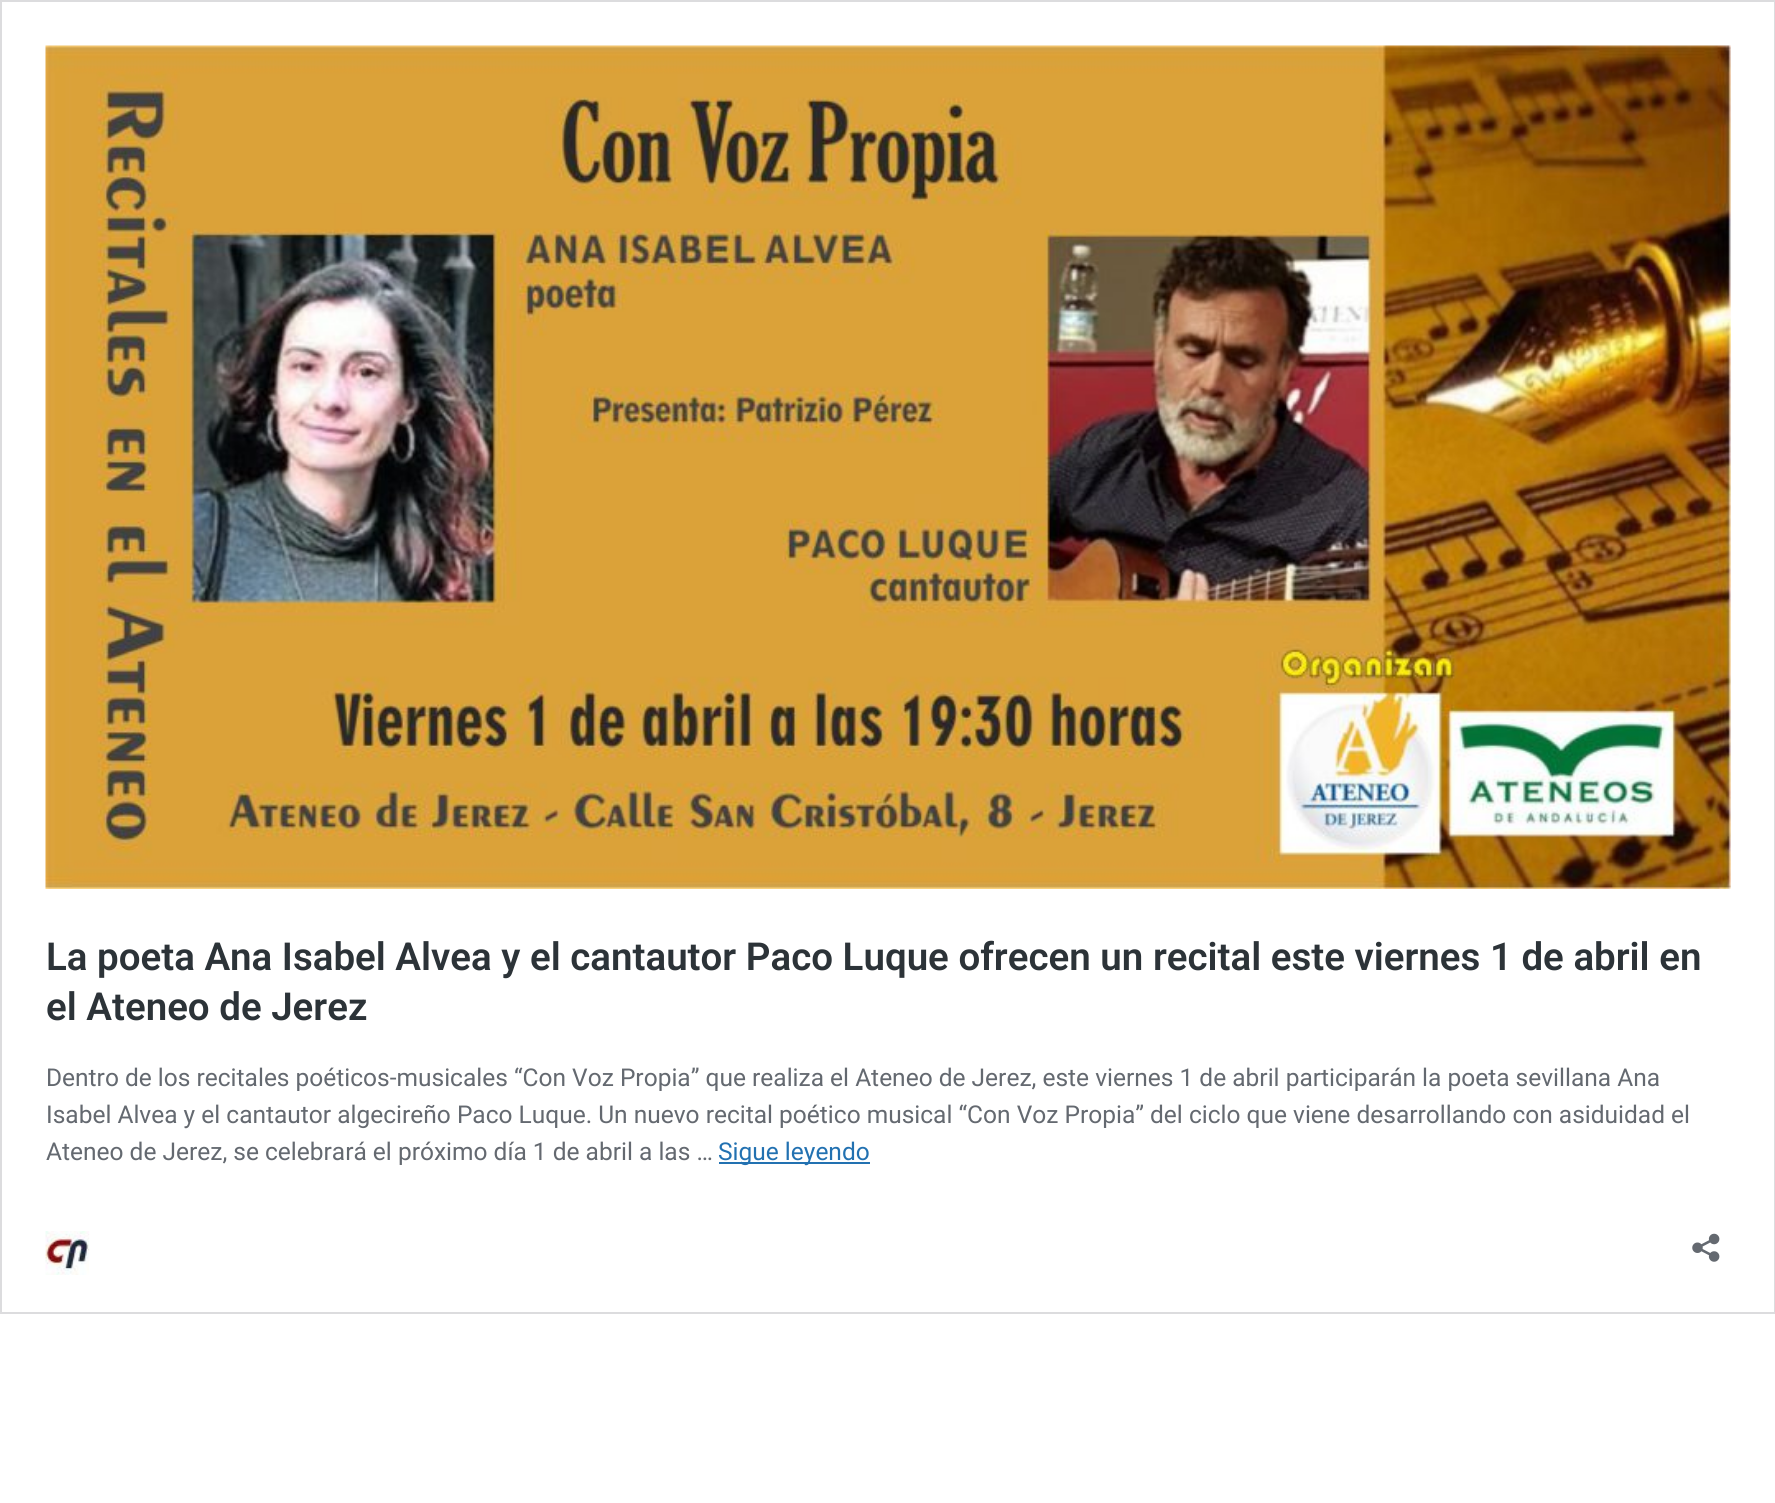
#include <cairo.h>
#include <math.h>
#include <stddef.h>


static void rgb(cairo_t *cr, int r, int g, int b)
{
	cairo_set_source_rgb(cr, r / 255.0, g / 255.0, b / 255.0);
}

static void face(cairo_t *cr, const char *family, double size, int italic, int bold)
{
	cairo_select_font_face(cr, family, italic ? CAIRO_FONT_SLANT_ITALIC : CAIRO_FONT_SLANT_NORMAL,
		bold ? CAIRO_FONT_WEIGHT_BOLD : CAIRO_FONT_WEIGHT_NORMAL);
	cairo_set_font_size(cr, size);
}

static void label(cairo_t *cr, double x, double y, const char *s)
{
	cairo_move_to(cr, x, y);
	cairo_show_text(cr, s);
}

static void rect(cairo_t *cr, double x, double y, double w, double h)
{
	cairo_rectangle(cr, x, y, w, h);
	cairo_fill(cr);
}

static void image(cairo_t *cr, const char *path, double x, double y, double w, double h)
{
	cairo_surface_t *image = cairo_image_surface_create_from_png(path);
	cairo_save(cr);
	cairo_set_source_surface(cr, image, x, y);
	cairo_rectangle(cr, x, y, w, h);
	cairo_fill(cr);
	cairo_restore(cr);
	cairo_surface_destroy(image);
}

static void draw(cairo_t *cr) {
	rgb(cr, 255, 255, 255);
	cairo_paint(cr);
	cairo_rectangle(cr, 1, 1, 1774, 1312);
	rgb(cr, 220, 220, 222);
	cairo_stroke(cr);
	image(cr, "image0.png", 45, 45, 1686, 844);
	face(cr, "Roboto SemiBold", 38.5, 0, 0);
	rgb(cr, 44, 51, 56);
	label(cr, 46, 970, "La poeta Ana Isabel Alvea y el cantautor Paco Luque ofrecen un recital este viernes 1 de abril en");
	label(cr, 46, 1020, "el Ateneo de Jerez");
	face(cr, "Roboto", 24.5, 0, 0);
	rgb(cr, 100, 105, 112);
	label(cr, 46, 1086, "Dentro de los recitales poéticos-musicales “Con Voz Propia” que realiza el Ateneo de Jerez, este viernes 1 de abril participarán la poeta sevillana Ana");
	label(cr, 46, 1123, "Isabel Alvea y el cantautor algecireño Paco Luque. Un nuevo recital poético musical “Con Voz Propia” del ciclo que viene desarrollando con asiduidad el");
	label(cr, 46, 1160, "Ateneo de Jerez, se celebrará el próximo día 1 de abril a las …");
	rgb(cr, 34, 113, 177);
	rect(cr, 719, 1162, 151, 2);
	label(cr, 718, 1160, "Sigue leyendo");
	image(cr, "image1.png", 45, 1231, 45, 44);
	image(cr, "image2.png", 1692, 1233, 28, 29);
}

int main(void) {
	cairo_surface_t *surface = cairo_image_surface_create(CAIRO_FORMAT_RGB24, 1775, 1503);
	cairo_t *cr = cairo_create(surface);
	cairo_font_options_t *options = cairo_font_options_create();
	cairo_font_options_set_hint_metrics(options, CAIRO_HINT_METRICS_OFF);
	cairo_font_options_set_hint_style(options, CAIRO_HINT_STYLE_NONE);
	cairo_set_font_options(cr, options);
	cairo_set_miter_limit(cr, 4);
	draw(cr);
	cairo_surface_write_to_png(surface, "render.png");
	cairo_font_options_destroy(options);
	cairo_destroy(cr);
	cairo_surface_destroy(surface);
	return 0;
}
